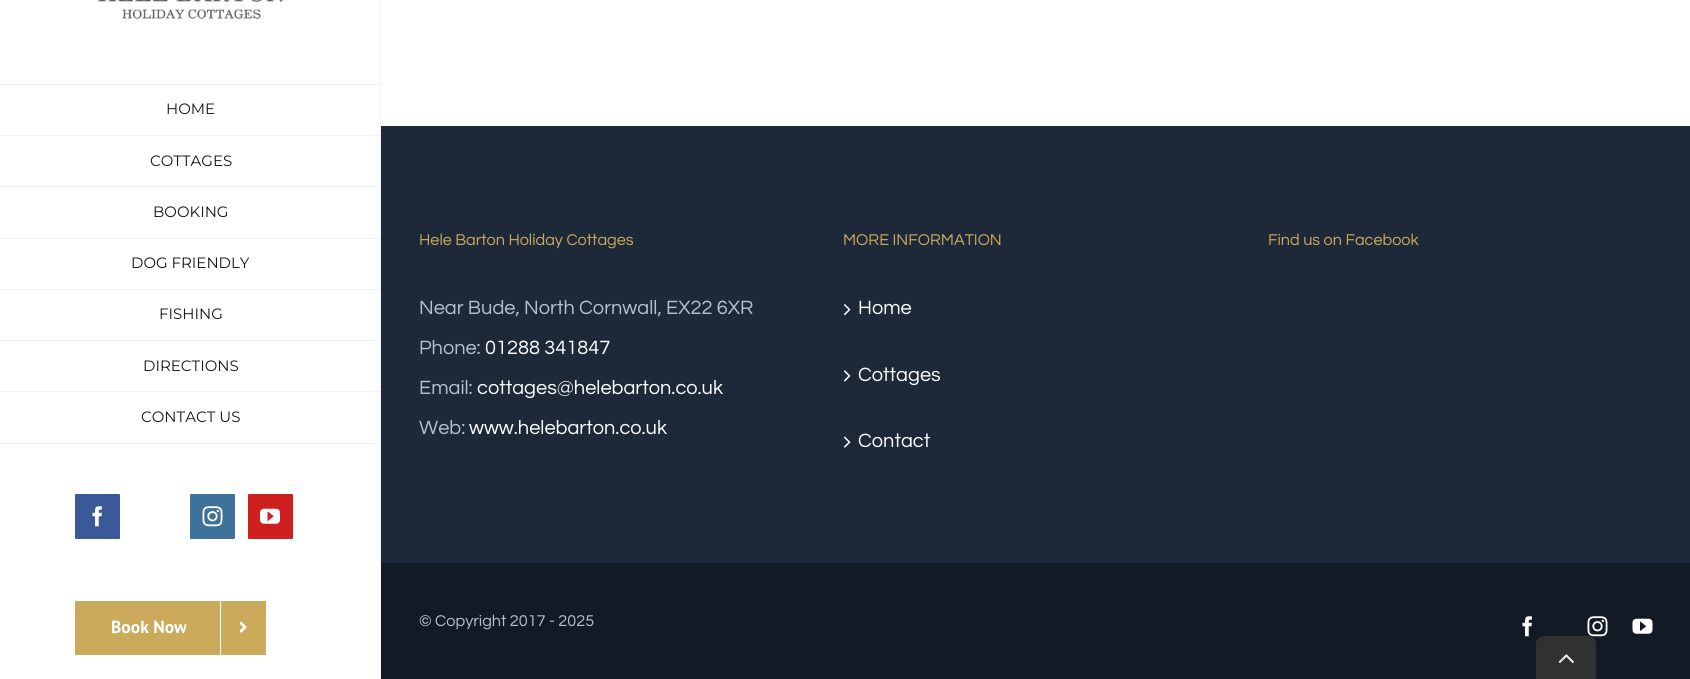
#include <cairo.h>
#include <math.h>
#include <stddef.h>


static void rgb(cairo_t *cr, int r, int g, int b)
{
	cairo_set_source_rgb(cr, r / 255.0, g / 255.0, b / 255.0);
}

static void face(cairo_t *cr, const char *family, double size, int italic, int bold)
{
	cairo_select_font_face(cr, family, italic ? CAIRO_FONT_SLANT_ITALIC : CAIRO_FONT_SLANT_NORMAL,
		bold ? CAIRO_FONT_WEIGHT_BOLD : CAIRO_FONT_WEIGHT_NORMAL);
	cairo_set_font_size(cr, size);
}

static void label(cairo_t *cr, double x, double y, const char *s)
{
	cairo_move_to(cr, x, y);
	cairo_show_text(cr, s);
}

static void rect(cairo_t *cr, double x, double y, double w, double h)
{
	cairo_rectangle(cr, x, y, w, h);
	cairo_fill(cr);
}

static void rrect(cairo_t *cr, double x, double y, double w, double h, double r)
{
	cairo_new_sub_path(cr);
	cairo_arc(cr, x + w - r, y + h - r, r, 0, M_PI / 2);
	cairo_arc(cr, x + r, y + h - r, r, M_PI / 2, M_PI);
	cairo_arc(cr, x + r, y + r, r, M_PI, 1.5 * M_PI);
	cairo_arc(cr, x + w - r, y + r, r, 1.5 * M_PI, 2 * M_PI);
	cairo_close_path(cr);
}

static void image(cairo_t *cr, const char *path, double x, double y, double w, double h)
{
	cairo_surface_t *image = cairo_image_surface_create_from_png(path);
	cairo_save(cr);
	cairo_set_source_surface(cr, image, x, y);
	cairo_rectangle(cr, x, y, w, h);
	cairo_fill(cr);
	cairo_restore(cr);
	cairo_surface_destroy(image);
}

static void draw(cairo_t *cr) {
	rgb(cr, 255, 255, 255);
	cairo_paint(cr);
	image(cr, "image0.png", 98, 0, 185, 19);
	rgb(cr, 242, 242, 242);
	rect(cr, 380, 0, 1, 679);
	rect(cr, 0, 84, 381, 1);
	rect(cr, 0, 135, 381, 1);
	face(cr, "Montserrat Thin", 15, 0, 0);
	rgb(cr, 23, 23, 23);
	label(cr, 166, 114, "HOME");
	rgb(cr, 242, 242, 242);
	rect(cr, 0, 186, 381, 1);
	rgb(cr, 23, 23, 23);
	label(cr, 150, 166, "COTTAGES");
	rgb(cr, 242, 242, 242);
	rect(cr, 0, 238, 381, 1);
	rgb(cr, 23, 23, 23);
	label(cr, 153, 217, "BOOKING");
	rgb(cr, 242, 242, 242);
	rect(cr, 0, 289, 381, 1);
	rgb(cr, 23, 23, 23);
	label(cr, 131, 268, "DOG FRIENDLY");
	rgb(cr, 242, 242, 242);
	rect(cr, 0, 340, 381, 1);
	rgb(cr, 23, 23, 23);
	label(cr, 159, 319, "FISHING");
	rgb(cr, 242, 242, 242);
	rect(cr, 0, 391, 381, 1);
	rgb(cr, 23, 23, 23);
	label(cr, 143, 371, "DIRECTIONS");
	rgb(cr, 242, 242, 242);
	rect(cr, 0, 443, 381, 1);
	rgb(cr, 23, 23, 23);
	label(cr, 141, 422, "CONTACT US");
	rgb(cr, 59, 89, 152);
	rrect(cr, 75.5, 494.5, 44, 44, 0.5);
	cairo_fill_preserve(cr);
	cairo_set_line_width(cr, 1);
	cairo_stroke(cr);
	image(cr, "image1.png", 92, 506, 10, 21);
	rgb(cr, 63, 114, 155);
	rrect(cr, 190.5, 494.5, 44, 44, 0.5);
	cairo_fill_preserve(cr);
	cairo_stroke(cr);
	image(cr, "image2.png", 202, 506, 21, 21);
	rgb(cr, 205, 32, 31);
	rrect(cr, 248.5, 494.5, 44, 44, 0.5);
	cairo_fill_preserve(cr);
	cairo_stroke(cr);
	image(cr, "image3.png", 260, 508, 20, 16);
	rgb(cr, 203, 170, 92);
	rect(cr, 75, 601, 191, 54);
	face(cr, "PT Sans", 17.5, 0, 1);
	rgb(cr, 255, 255, 255);
	label(cr, 111, 633, "Book Now");
	rect(cr, 220, 601, 1, 54);
	image(cr, "image4.png", 239, 621, 8, 12);
	rgb(cr, 29, 41, 57);
	rect(cr, 381, 126, 1309, 437);
	face(cr, "Questrial", 16.25, 0, 0);
	rgb(cr, 203, 170, 92);
	label(cr, 419, 245, "Hele Barton Holiday Cottages");
	face(cr, "Questrial", 20, 0, 0);
	rgb(cr, 182, 192, 206);
	label(cr, 419, 314, "Near Bude, North Cornwall, EX22 6XR");
	label(cr, 419, 354, "Phone:");
	rgb(cr, 255, 255, 255);
	label(cr, 485, 354, "01288 341847");
	rgb(cr, 182, 192, 206);
	label(cr, 419, 394, "Email:");
	rgb(cr, 255, 255, 255);
	label(cr, 477, 394, "cottages@helebarton.co.uk");
	rgb(cr, 182, 192, 206);
	label(cr, 419, 434, "Web:");
	rgb(cr, 255, 255, 255);
	label(cr, 469, 434, "www.helebarton.co.uk");
	face(cr, "Questrial", 16.25, 0, 0);
	rgb(cr, 203, 170, 92);
	label(cr, 843, 245, "MORE INFORMATION");
	image(cr, "image5.png", 843, 304, 8, 12);
	face(cr, "Questrial", 20, 0, 0);
	rgb(cr, 255, 255, 255);
	label(cr, 858, 314, "Home");
	image(cr, "image6.png", 843, 370, 8, 12);
	label(cr, 858, 381, "Cottages");
	image(cr, "image7.png", 843, 436, 8, 12);
	label(cr, 858, 447, "Contact");
	face(cr, "Questrial", 16.25, 0, 0);
	rgb(cr, 203, 170, 92);
	label(cr, 1268, 245, "Find us on Facebook");
	rgb(cr, 18, 26, 38);
	rect(cr, 381, 563, 1309, 116);
	rgb(cr, 182, 192, 206);
	label(cr, 419, 626, "© Copyright 2017 - 2025");
	image(cr, "image8.png", 1522, 616, 10, 21);
	image(cr, "image9.png", 1587, 616, 21, 21);
	image(cr, "image10.png", 1632, 618, 21, 16);
	rgb(cr, 48, 49, 50);
	cairo_new_path(cr);
	cairo_move_to(cr, 1544, 636);
	cairo_line_to(cr, 1588, 636);
	cairo_curve_to(cr, 1592.5, 636, 1596, 639.5, 1596, 644);
	cairo_line_to(cr, 1596, 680);
	cairo_line_to(cr, 1536, 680);
	cairo_line_to(cr, 1536, 644);
	cairo_curve_to(cr, 1536, 639.5, 1539.5, 636, 1544, 636);
	cairo_close_path(cr);
	cairo_fill(cr);
	image(cr, "image11.png", 1558, 654, 16, 10);
}

int main(void) {
	cairo_surface_t *surface = cairo_image_surface_create(CAIRO_FORMAT_RGB24, 1690, 679);
	cairo_t *cr = cairo_create(surface);
	cairo_font_options_t *options = cairo_font_options_create();
	cairo_font_options_set_hint_metrics(options, CAIRO_HINT_METRICS_OFF);
	cairo_font_options_set_hint_style(options, CAIRO_HINT_STYLE_NONE);
	cairo_set_font_options(cr, options);
	cairo_set_miter_limit(cr, 4);
	draw(cr);
	cairo_surface_write_to_png(surface, "render.png");
	cairo_font_options_destroy(options);
	cairo_destroy(cr);
	cairo_surface_destroy(surface);
	return 0;
}
